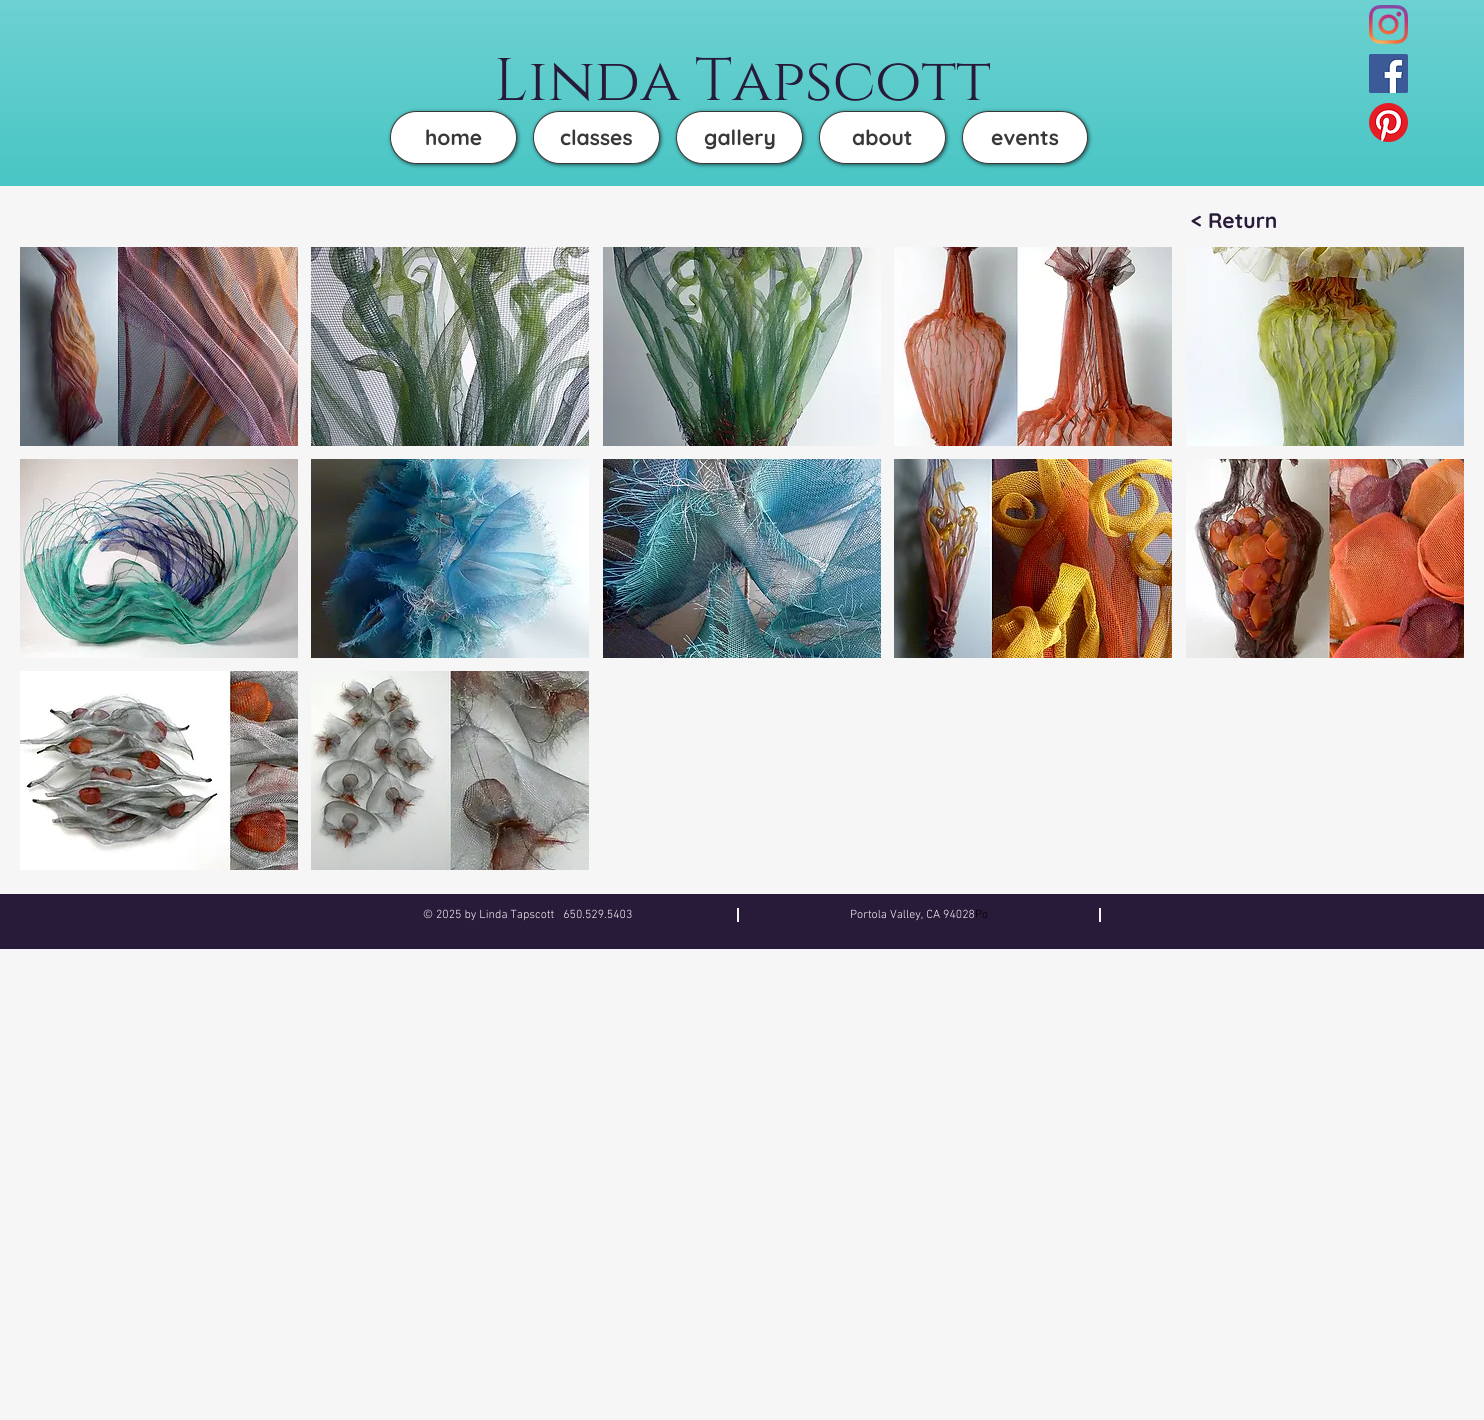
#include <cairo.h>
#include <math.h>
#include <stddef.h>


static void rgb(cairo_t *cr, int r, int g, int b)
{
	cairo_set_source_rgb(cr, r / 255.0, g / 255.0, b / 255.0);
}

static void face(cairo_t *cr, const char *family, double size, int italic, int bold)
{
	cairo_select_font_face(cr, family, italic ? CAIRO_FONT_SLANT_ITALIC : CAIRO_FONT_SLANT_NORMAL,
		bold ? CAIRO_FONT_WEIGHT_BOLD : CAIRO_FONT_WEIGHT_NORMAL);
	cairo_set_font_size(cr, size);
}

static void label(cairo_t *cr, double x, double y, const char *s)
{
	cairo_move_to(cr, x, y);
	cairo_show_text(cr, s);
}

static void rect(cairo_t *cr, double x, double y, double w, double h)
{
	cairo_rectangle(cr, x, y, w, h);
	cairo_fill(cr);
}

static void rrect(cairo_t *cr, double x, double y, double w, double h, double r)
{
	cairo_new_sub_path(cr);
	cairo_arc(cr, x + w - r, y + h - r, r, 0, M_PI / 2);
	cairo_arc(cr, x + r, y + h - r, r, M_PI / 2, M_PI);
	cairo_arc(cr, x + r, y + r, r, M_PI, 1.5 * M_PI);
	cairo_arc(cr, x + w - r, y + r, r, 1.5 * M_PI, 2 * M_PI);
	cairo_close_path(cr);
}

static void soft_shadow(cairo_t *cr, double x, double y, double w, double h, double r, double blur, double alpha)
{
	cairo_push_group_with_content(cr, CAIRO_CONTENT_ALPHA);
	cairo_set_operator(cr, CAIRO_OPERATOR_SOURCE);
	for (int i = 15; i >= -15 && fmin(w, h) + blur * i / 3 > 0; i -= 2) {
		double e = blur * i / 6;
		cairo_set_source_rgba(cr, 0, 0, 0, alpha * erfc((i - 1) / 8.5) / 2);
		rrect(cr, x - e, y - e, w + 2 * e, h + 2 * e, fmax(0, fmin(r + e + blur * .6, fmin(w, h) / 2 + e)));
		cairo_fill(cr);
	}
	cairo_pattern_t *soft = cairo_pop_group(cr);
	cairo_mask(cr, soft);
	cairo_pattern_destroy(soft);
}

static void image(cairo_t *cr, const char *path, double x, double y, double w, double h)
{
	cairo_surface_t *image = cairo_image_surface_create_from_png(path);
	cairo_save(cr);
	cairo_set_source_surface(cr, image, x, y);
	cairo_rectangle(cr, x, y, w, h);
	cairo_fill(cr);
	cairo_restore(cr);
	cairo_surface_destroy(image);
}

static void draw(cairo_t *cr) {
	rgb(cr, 246, 246, 246);
	cairo_paint(cr);
	rgb(cr, 58, 193, 192);
	rect(cr, 0, 0, 1484, 186);
	image(cr, "image0.png", 0, 0, 1484, 186);
	face(cr, "Cinzel", 60, 0, 0);
	rgb(cr, 40, 26, 57);
	label(cr, 494, 100, "Linda Tapscott");
	rgb(cr, 0, 0, 0);
	soft_shadow(cr, 391, 112, 127, 53, 26.5, 2, 0.6);
	rgb(cr, 255, 255, 255);
	rrect(cr, 390.5, 111.5, 126, 52, 26);
	cairo_fill_preserve(cr);
	rgb(cr, 56, 56, 56);
	cairo_set_line_width(cr, 1);
	cairo_stroke(cr);
	face(cr, "Quicksand", 21, 0, 1);
	label(cr, 425, 145, "home");
	rgb(cr, 0, 0, 0);
	soft_shadow(cr, 534, 112, 127, 53, 26.5, 2, 0.6);
	rgb(cr, 255, 255, 255);
	rrect(cr, 533.5, 111.5, 126, 52, 26);
	cairo_fill_preserve(cr);
	rgb(cr, 56, 56, 56);
	cairo_stroke(cr);
	label(cr, 560, 145, "classes");
	rgb(cr, 0, 0, 0);
	soft_shadow(cr, 677, 112, 127, 53, 26.5, 2, 0.6);
	rgb(cr, 255, 255, 255);
	rrect(cr, 676.5, 111.5, 126, 52, 26);
	cairo_fill_preserve(cr);
	rgb(cr, 56, 56, 56);
	cairo_stroke(cr);
	label(cr, 704, 145, "gallery");
	rgb(cr, 0, 0, 0);
	soft_shadow(cr, 820, 112, 127, 53, 26.5, 2, 0.6);
	rgb(cr, 255, 255, 255);
	rrect(cr, 819.5, 111.5, 126, 52, 26);
	cairo_fill_preserve(cr);
	rgb(cr, 56, 56, 56);
	cairo_stroke(cr);
	label(cr, 852, 145, "about");
	rgb(cr, 0, 0, 0);
	soft_shadow(cr, 963, 112, 126, 53, 26.5, 2, 0.6);
	rgb(cr, 255, 255, 255);
	rrect(cr, 962.5, 111.5, 125, 52, 26);
	cairo_fill_preserve(cr);
	rgb(cr, 56, 56, 56);
	cairo_stroke(cr);
	label(cr, 991, 145, "events");
	image(cr, "image1.png", 1369, 5, 39, 39);
	image(cr, "image2.png", 1369, 54, 39, 39);
	image(cr, "image3.png", 1369, 103, 39, 39);
	rgb(cr, 40, 26, 57);
	label(cr, 1191, 228, "< Return");
	image(cr, "image4.png", 20, 247, 278, 199);
	image(cr, "image5.png", 311, 247, 278, 199);
	image(cr, "image6.png", 603, 247, 278, 199);
	image(cr, "image7.png", 894, 247, 278, 199);
	image(cr, "image8.png", 1186, 247, 278, 199);
	image(cr, "image9.png", 20, 459, 278, 199);
	image(cr, "image10.png", 311, 459, 278, 199);
	image(cr, "image11.png", 603, 459, 278, 199);
	image(cr, "image12.png", 894, 459, 278, 199);
	image(cr, "image13.png", 1186, 459, 278, 199);
	image(cr, "image14.png", 20, 671, 278, 199);
	image(cr, "image15.png", 311, 671, 278, 199);
	rect(cr, 0, 894, 1484, 55);
	face(cr, "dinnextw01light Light", 12, 0, 0);
	rgb(cr, 246, 246, 246);
	label(cr, 423, 918, "© 2025 by Linda Tapscott   650.529.5403");
	rect(cr, 737, 908, 2, 14);
	label(cr, 850, 918, "Portola Valley, CA 94028");
	rgb(cr, 0, 0, 0);
	label(cr, 975, 918, "Po");
	rgb(cr, 246, 246, 246);
	rect(cr, 1099, 908, 2, 14);
}

int main(void) {
	cairo_surface_t *surface = cairo_image_surface_create(CAIRO_FORMAT_RGB24, 1484, 1420);
	cairo_t *cr = cairo_create(surface);
	cairo_font_options_t *options = cairo_font_options_create();
	cairo_font_options_set_hint_metrics(options, CAIRO_HINT_METRICS_OFF);
	cairo_font_options_set_hint_style(options, CAIRO_HINT_STYLE_NONE);
	cairo_set_font_options(cr, options);
	cairo_set_miter_limit(cr, 4);
	draw(cr);
	cairo_surface_write_to_png(surface, "render.png");
	cairo_font_options_destroy(options);
	cairo_destroy(cr);
	cairo_surface_destroy(surface);
	return 0;
}
